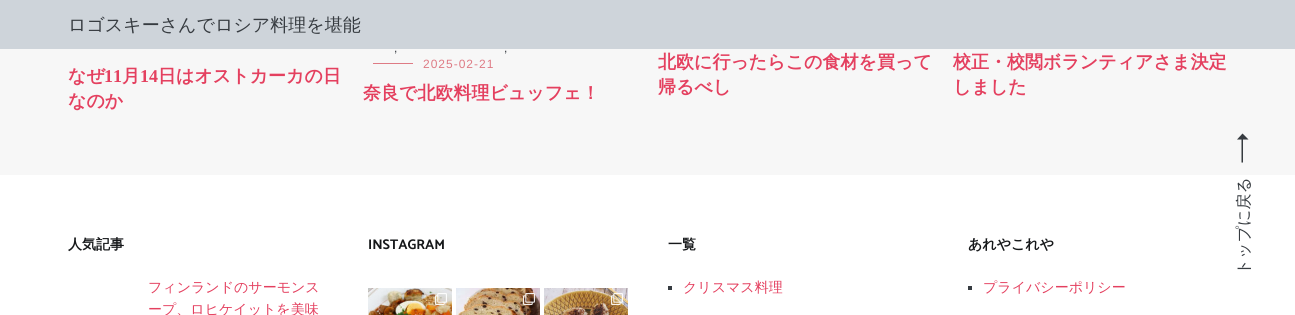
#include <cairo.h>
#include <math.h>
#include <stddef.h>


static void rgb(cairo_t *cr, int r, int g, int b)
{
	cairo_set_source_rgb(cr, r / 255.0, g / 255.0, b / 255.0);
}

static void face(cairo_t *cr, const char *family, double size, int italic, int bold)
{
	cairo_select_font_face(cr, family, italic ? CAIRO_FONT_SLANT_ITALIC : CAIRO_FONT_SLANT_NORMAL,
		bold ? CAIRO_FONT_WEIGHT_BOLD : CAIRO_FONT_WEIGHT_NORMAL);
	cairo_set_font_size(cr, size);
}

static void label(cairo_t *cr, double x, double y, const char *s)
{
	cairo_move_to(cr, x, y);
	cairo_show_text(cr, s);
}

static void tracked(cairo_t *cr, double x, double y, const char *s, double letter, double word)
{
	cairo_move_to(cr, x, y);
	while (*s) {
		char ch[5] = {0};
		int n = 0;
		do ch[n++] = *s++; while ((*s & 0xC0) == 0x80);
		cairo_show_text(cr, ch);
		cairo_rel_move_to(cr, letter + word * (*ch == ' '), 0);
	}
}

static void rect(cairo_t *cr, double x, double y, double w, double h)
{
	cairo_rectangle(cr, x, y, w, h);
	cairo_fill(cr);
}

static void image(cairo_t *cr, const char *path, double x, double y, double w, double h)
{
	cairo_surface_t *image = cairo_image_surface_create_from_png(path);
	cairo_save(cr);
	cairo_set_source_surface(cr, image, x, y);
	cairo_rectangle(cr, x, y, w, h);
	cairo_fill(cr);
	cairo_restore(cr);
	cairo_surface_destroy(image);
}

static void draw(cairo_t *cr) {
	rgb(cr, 255, 255, 255);
	cairo_paint(cr);
	rgb(cr, 206, 212, 218);
	rect(cr, 0, 0, 1295, 49);
	face(cr, "WenQuanYi Zen Hei Medium", 18, 0, 0);
	rgb(cr, 54, 59, 64);
	label(cr, 68, 31, "ロゴスキーさんでロシア料理を堪能");
	rgb(cr, 247, 247, 247);
	rect(cr, 0, 49, 1295, 126);
	face(cr, "WenQuanYi Zen Hei", 18, 0, 1);
	rgb(cr, 228, 64, 95);
	label(cr, 68, 82, "なぜ");
	face(cr, "Liberation Serif", 18, 0, 1);
	label(cr, 104, 82, "11");
	face(cr, "WenQuanYi Zen Hei", 18, 0, 1);
	label(cr, 122, 82, "月");
	face(cr, "Liberation Serif", 18, 0, 1);
	label(cr, 140, 82, "14");
	face(cr, "WenQuanYi Zen Hei", 18, 0, 1);
	label(cr, 158, 82, "日はオストカーカの日");
	label(cr, 68, 107, "なのか");
	face(cr, "Liberation Sans", 12, 0, 0);
	rgb(cr, 54, 59, 64);
	tracked(cr, 394, 52, ",", 1, 0);
	tracked(cr, 504, 52, ",", 1, 0);
	rgb(cr, 222, 123, 133);
	rect(cr, 373, 63, 40, 1);
	tracked(cr, 423, 68, "2025-02-21", 1, 0);
	face(cr, "WenQuanYi Zen Hei", 18, 0, 1);
	rgb(cr, 228, 64, 95);
	label(cr, 363, 99, "奈良で北欧料理ビュッフェ！");
	label(cr, 658, 68, "北欧に行ったらこの食材を買って");
	label(cr, 658, 93, "帰るべし");
	label(cr, 953, 68, "校正・校閲ボランティアさま決定");
	label(cr, 953, 93, "しました");
	face(cr, "WenQuanYi Zen Hei", 14, 0, 1);
	rgb(cr, 22, 24, 26);
	label(cr, 68, 249, "人気記事");
	face(cr, "WenQuanYi Zen Hei Medium", 14, 0, 0);
	rgb(cr, 228, 64, 95);
	label(cr, 148, 292, "フィンランドのサーモンス");
	label(cr, 148, 314, "ープ、ロヒケイットを美味");
	face(cr, "Catamaran", 14, 0, 1);
	rgb(cr, 22, 24, 26);
	label(cr, 368, 249, "INSTAGRAM");
	image(cr, "image0.png", 368, 288, 84, 27);
	image(cr, "image1.png", 435, 293, 12, 12);
	image(cr, "image2.png", 456, 288, 84, 27);
	image(cr, "image3.png", 523, 293, 12, 12);
	image(cr, "image4.png", 544, 288, 84, 27);
	image(cr, "image5.png", 611, 293, 12, 12);
	face(cr, "WenQuanYi Zen Hei", 14, 0, 1);
	label(cr, 668, 249, "一覧");
	rgb(cr, 54, 59, 64);
	rect(cr, 668, 286, 4, 4);
	face(cr, "WenQuanYi Zen Hei Medium", 14, 0, 0);
	rgb(cr, 228, 64, 95);
	label(cr, 683, 292, "クリスマス料理");
	face(cr, "WenQuanYi Zen Hei", 14, 0, 1);
	rgb(cr, 22, 24, 26);
	label(cr, 968, 249, "あれやこれや");
	rgb(cr, 54, 59, 64);
	rect(cr, 968, 286, 4, 4);
	face(cr, "WenQuanYi Zen Hei Medium", 14, 0, 0);
	rgb(cr, 228, 64, 95);
	label(cr, 983, 292, "プライバシーポリシー");
	rgb(cr, 54, 59, 64);
	cairo_new_path(cr);
	cairo_move_to(cr, 1242.5, 133.5);
	cairo_line_to(cr, 1248.5, 139.5);
	cairo_line_to(cr, 1237, 139.5);
	cairo_close_path(cr);
	cairo_move_to(cr, 1241.5, 162.5);
	cairo_line_to(cr, 1241.5, 139.5);
	cairo_line_to(cr, 1243, 139.5);
	cairo_line_to(cr, 1243, 162.5);
	cairo_close_path(cr);
	cairo_fill(cr);
	face(cr, "WenQuanYi Zen Hei Medium", 16, 0, 0);
	cairo_save(cr);
	cairo_translate(cr, 1249, 275);
	cairo_rotate(cr, -90 * M_PI / 180);
	label(cr, 0, 0, "トップに戻る");
	cairo_restore(cr);
}

int main(void) {
	cairo_surface_t *surface = cairo_image_surface_create(CAIRO_FORMAT_RGB24, 1295, 315);
	cairo_t *cr = cairo_create(surface);
	cairo_font_options_t *options = cairo_font_options_create();
	cairo_font_options_set_hint_metrics(options, CAIRO_HINT_METRICS_OFF);
	cairo_font_options_set_hint_style(options, CAIRO_HINT_STYLE_NONE);
	cairo_set_font_options(cr, options);
	cairo_set_miter_limit(cr, 4);
	draw(cr);
	cairo_surface_write_to_png(surface, "render.png");
	cairo_font_options_destroy(options);
	cairo_destroy(cr);
	cairo_surface_destroy(surface);
	return 0;
}
